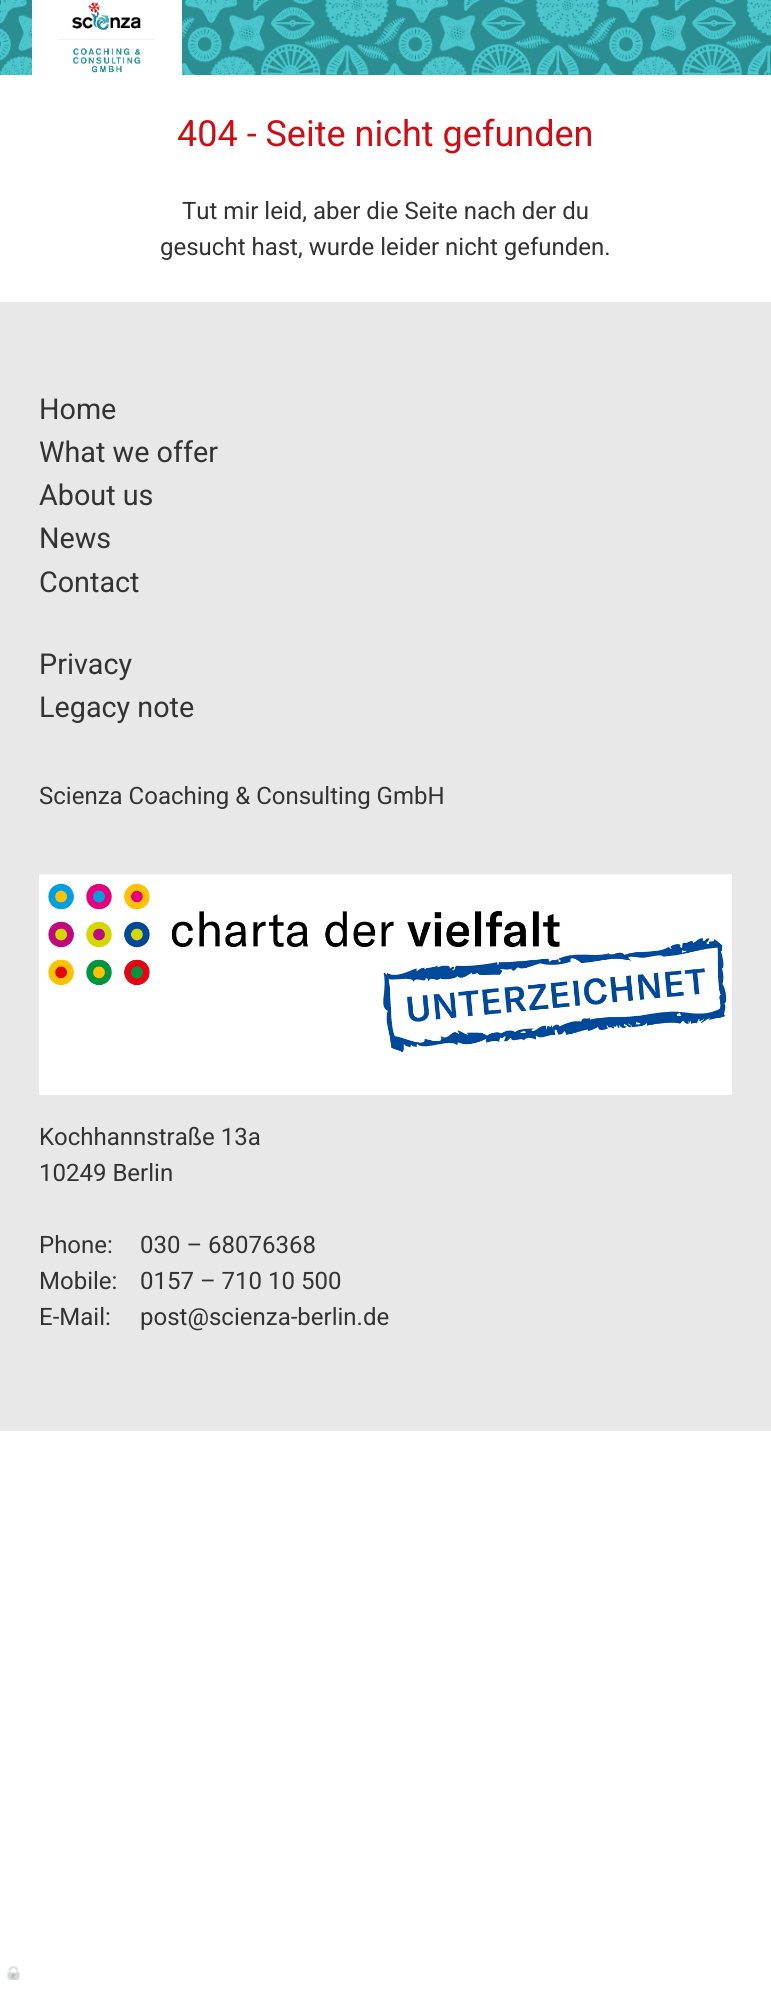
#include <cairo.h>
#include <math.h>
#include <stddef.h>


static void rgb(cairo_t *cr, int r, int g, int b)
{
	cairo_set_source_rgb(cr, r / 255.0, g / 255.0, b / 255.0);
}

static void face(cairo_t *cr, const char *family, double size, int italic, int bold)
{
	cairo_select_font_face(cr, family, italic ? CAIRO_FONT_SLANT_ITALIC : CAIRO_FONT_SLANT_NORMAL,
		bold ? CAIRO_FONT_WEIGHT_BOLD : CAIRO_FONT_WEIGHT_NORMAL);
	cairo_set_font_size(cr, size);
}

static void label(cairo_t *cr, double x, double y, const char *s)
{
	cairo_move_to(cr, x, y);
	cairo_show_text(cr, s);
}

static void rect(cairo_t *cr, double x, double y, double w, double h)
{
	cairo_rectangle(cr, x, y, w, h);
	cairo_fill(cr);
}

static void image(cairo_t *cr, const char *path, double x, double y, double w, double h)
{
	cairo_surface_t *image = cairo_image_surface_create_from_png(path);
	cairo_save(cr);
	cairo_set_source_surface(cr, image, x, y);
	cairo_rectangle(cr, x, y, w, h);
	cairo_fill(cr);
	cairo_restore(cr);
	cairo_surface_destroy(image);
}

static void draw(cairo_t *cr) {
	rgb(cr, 255, 255, 255);
	cairo_paint(cr);
	image(cr, "image0.png", 0, 0, 771, 75);
	rgb(cr, 255, 255, 255);
	rect(cr, 32, 0, 150, 75);
	image(cr, "image1.png", 59, 2, 96, 72);
	face(cr, "Heebo", 36, 0, 0);
	rgb(cr, 203, 15, 22);
	label(cr, 177, 146, "404 - Seite nicht gefunden");
	face(cr, "Heebo", 24, 0, 0);
	rgb(cr, 51, 51, 51);
	label(cr, 182, 219, "Tut mir leid, aber die Seite nach der du");
	label(cr, 160, 255, "gesucht hast, wurde leider nicht gefunden.");
	rgb(cr, 232, 232, 232);
	rect(cr, 0, 302, 771, 1129);
	face(cr, "Heebo", 28.75, 0, 0);
	rgb(cr, 51, 51, 51);
	label(cr, 39, 419, "Home");
	label(cr, 39, 462, "What we offer");
	label(cr, 39, 505, "About us");
	label(cr, 39, 548, "News");
	label(cr, 39, 592, "Contact");
	label(cr, 39, 674, "Privacy");
	label(cr, 39, 717, "Legacy note");
	face(cr, "Heebo", 24, 0, 0);
	label(cr, 39, 804, "Scienza Coaching & Consulting GmbH");
	image(cr, "image2.png", 39, 874, 693, 221);
	label(cr, 39, 1145, "Kochhannstraße 13a");
	label(cr, 39, 1181, "10249 Berlin");
	label(cr, 39, 1253, "Phone:");
	label(cr, 140, 1253, "030 – 68076368");
	label(cr, 39, 1289, "Mobile:");
	label(cr, 140, 1289, "0157 – 710 10 500");
	label(cr, 39, 1325, "E-Mail:");
	label(cr, 140, 1325, "post@scienza-berlin.de");
	image(cr, "image3.png", 7, 1966, 13, 14);
}

int main(void) {
	cairo_surface_t *surface = cairo_image_surface_create(CAIRO_FORMAT_RGB24, 771, 1994);
	cairo_t *cr = cairo_create(surface);
	cairo_font_options_t *options = cairo_font_options_create();
	cairo_font_options_set_hint_metrics(options, CAIRO_HINT_METRICS_OFF);
	cairo_font_options_set_hint_style(options, CAIRO_HINT_STYLE_NONE);
	cairo_set_font_options(cr, options);
	cairo_set_miter_limit(cr, 4);
	draw(cr);
	cairo_surface_write_to_png(surface, "render.png");
	cairo_font_options_destroy(options);
	cairo_destroy(cr);
	cairo_surface_destroy(surface);
	return 0;
}
